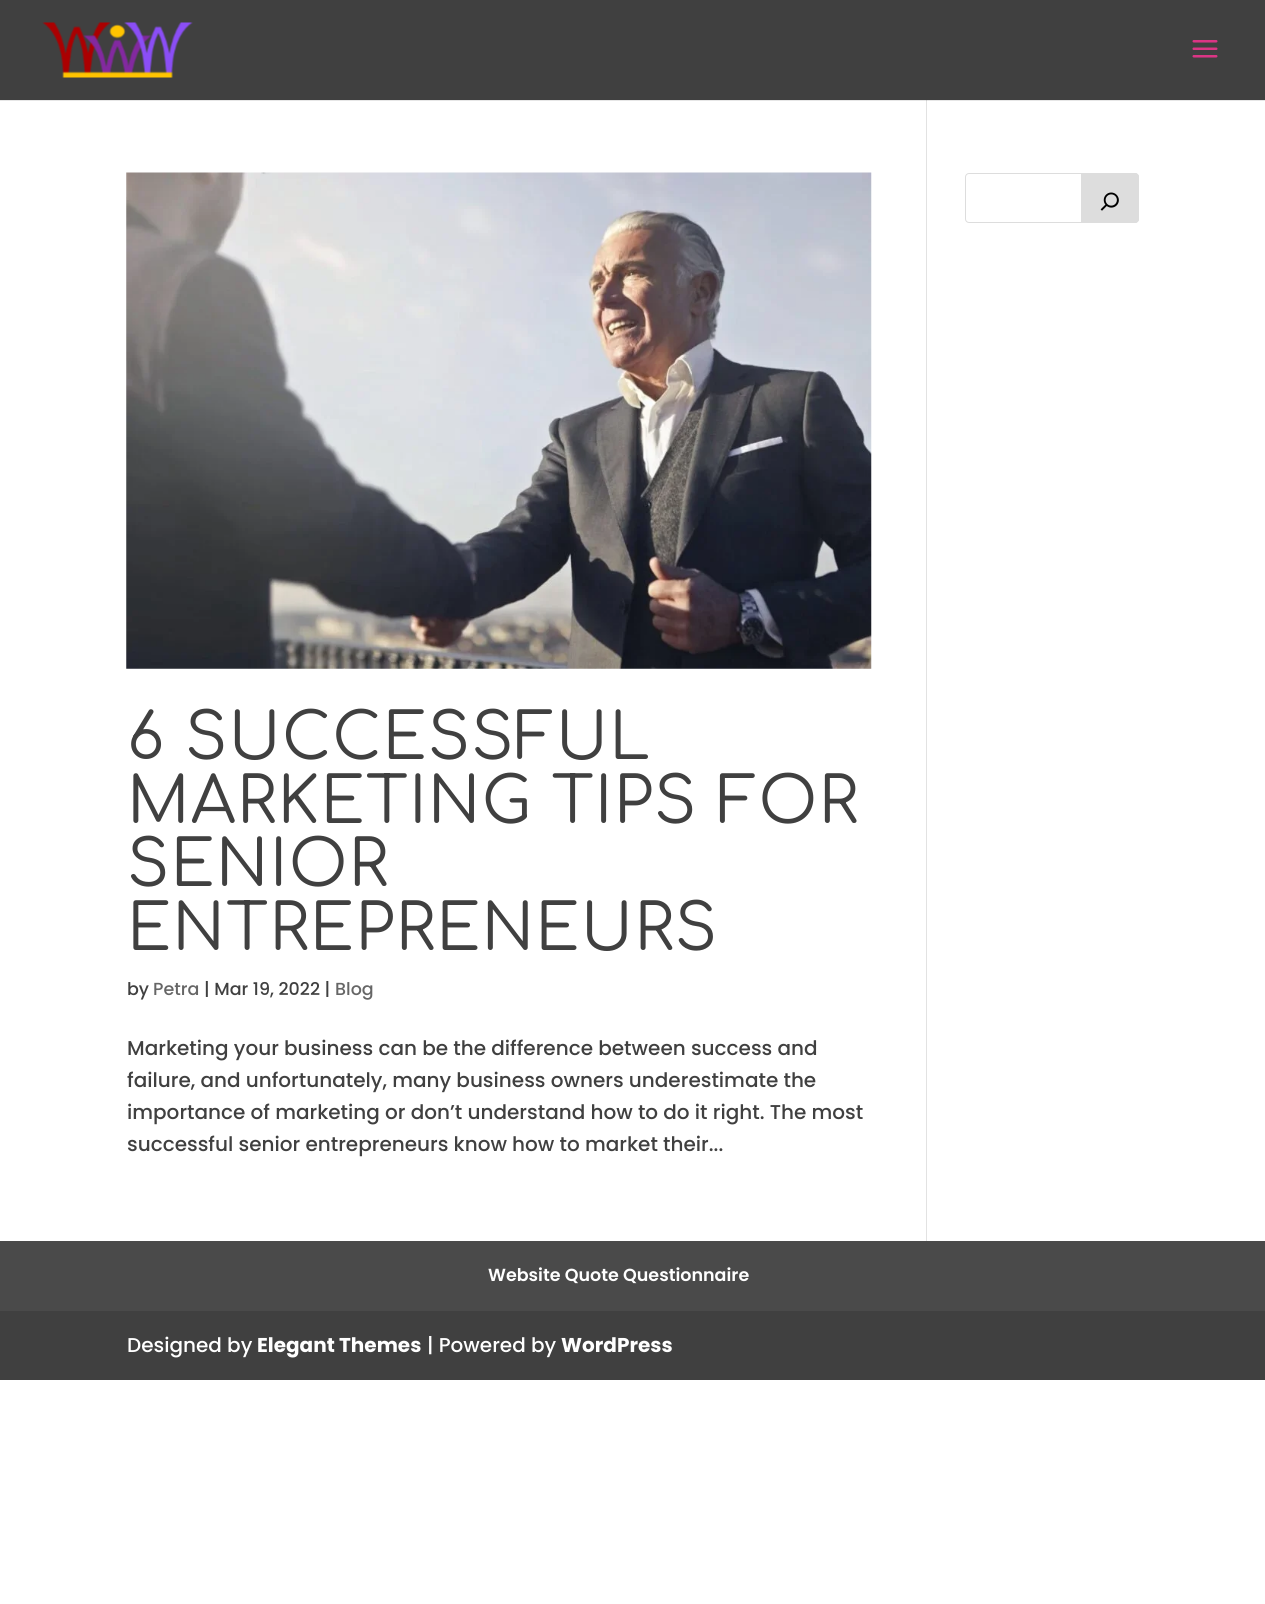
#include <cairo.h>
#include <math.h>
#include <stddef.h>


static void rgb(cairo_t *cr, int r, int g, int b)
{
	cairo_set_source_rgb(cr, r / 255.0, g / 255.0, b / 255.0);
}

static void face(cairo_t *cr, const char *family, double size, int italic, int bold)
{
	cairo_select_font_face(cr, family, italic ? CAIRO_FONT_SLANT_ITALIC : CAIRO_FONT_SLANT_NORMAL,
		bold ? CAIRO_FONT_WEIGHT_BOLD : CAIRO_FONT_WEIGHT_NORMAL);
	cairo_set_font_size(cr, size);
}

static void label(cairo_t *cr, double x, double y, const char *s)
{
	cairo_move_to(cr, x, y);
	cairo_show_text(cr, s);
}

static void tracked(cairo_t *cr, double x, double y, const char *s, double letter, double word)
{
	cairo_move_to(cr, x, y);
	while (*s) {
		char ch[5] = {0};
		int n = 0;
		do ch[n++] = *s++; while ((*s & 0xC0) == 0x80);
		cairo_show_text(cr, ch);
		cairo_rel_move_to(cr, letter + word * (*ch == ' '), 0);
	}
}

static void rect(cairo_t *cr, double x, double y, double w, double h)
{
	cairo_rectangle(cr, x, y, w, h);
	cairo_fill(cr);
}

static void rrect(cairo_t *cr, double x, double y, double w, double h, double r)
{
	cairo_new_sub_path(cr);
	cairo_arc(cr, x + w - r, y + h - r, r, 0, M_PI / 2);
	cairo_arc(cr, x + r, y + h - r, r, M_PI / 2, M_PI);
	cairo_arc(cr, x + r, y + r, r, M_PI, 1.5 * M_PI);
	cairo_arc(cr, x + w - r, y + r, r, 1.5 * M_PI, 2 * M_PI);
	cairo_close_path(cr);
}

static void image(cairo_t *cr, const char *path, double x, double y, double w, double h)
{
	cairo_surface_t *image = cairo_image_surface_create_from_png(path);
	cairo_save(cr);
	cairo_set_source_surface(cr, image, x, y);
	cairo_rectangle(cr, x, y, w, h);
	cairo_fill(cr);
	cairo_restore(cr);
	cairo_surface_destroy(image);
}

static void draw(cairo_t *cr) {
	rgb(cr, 255, 255, 255);
	cairo_paint(cr);
	rgb(cr, 230, 230, 230);
	rect(cr, 0, 100, 1265, 1);
	rgb(cr, 64, 64, 64);
	rect(cr, 0, 0, 1265, 100);
	image(cr, "image0.png", 42, 22, 151, 56);
	image(cr, "image1.png", 1192, 40, 26, 18);
	rrect(cr, 965.5, 173.5, 173, 49, 3.5);
	rgb(cr, 221, 221, 221);
	cairo_set_line_width(cr, 1);
	cairo_stroke(cr);
	cairo_new_path(cr);
	cairo_move_to(cr, 1081.5, 173.5);
	cairo_line_to(cr, 1135, 173.5);
	cairo_curve_to(cr, 1137, 173.5, 1138.5, 175, 1138.5, 177);
	cairo_line_to(cr, 1138.5, 219);
	cairo_curve_to(cr, 1138.5, 221, 1137, 222.5, 1135, 222.5);
	cairo_line_to(cr, 1081.5, 222.5);
	cairo_close_path(cr);
	cairo_fill_preserve(cr);
	cairo_stroke(cr);
	image(cr, "image2.png", 1100, 192, 19, 19);
	image(cr, "image3.png", 126, 172, 746, 497);
	face(cr, "Comfortaa", 63.75, 0, 0);
	rgb(cr, 64, 64, 64);
	tracked(cr, 127, 759, "6 SUCCESSFUL", 1.25, 0);
	tracked(cr, 127, 823, "MARKETING TIPS FOR", 1.25, 0);
	tracked(cr, 127, 886, "SENIOR", 1.25, 0);
	tracked(cr, 127, 950, "ENTREPRENEURS", 1.25, 0);
	face(cr, "Poppins Medium", 17.5, 0, 0);
	label(cr, 127, 995, "by");
	rgb(cr, 102, 102, 102);
	label(cr, 153, 995, "Petra");
	rgb(cr, 64, 64, 64);
	label(cr, 204, 995, "| Mar 19, 2022 |");
	rgb(cr, 102, 102, 102);
	label(cr, 335, 995, "Blog");
	face(cr, "Poppins Medium", 20, 0, 0);
	rgb(cr, 64, 64, 64);
	label(cr, 127, 1055, "Marketing your business can be the difference between success and");
	label(cr, 127, 1087, "failure, and unfortunately, many business owners underestimate the");
	label(cr, 127, 1119, "importance of marketing or don’t understand how to do it right. The most");
	label(cr, 127, 1151, "successful senior entrepreneurs know how to market their...");
	rgb(cr, 226, 226, 226);
	rect(cr, 926, 100, 1, 1141);
	rgb(cr, 203, 203, 203);
	rect(cr, 926, 100, 1, 1);
	rgb(cr, 64, 64, 64);
	rect(cr, 0, 1311, 1265, 69);
	rgb(cr, 74, 74, 74);
	rect(cr, 0, 1241, 1265, 70);
	face(cr, "Poppins SemiBold", 17.5, 0, 0);
	rgb(cr, 255, 255, 255);
	label(cr, 488, 1281, "Website Quote Questionnaire");
	face(cr, "Poppins Medium", 20, 0, 0);
	label(cr, 127, 1352, "Designed by");
	face(cr, "Poppins", 20, 0, 1);
	label(cr, 257, 1352, "Elegant Themes");
	face(cr, "Poppins Medium", 20, 0, 0);
	label(cr, 427, 1352, "| Powered by");
	face(cr, "Poppins", 20, 0, 1);
	label(cr, 561, 1352, "WordPress");
}

int main(void) {
	cairo_surface_t *surface = cairo_image_surface_create(CAIRO_FORMAT_RGB24, 1265, 1604);
	cairo_t *cr = cairo_create(surface);
	cairo_font_options_t *options = cairo_font_options_create();
	cairo_font_options_set_hint_metrics(options, CAIRO_HINT_METRICS_OFF);
	cairo_font_options_set_hint_style(options, CAIRO_HINT_STYLE_NONE);
	cairo_set_font_options(cr, options);
	cairo_set_miter_limit(cr, 4);
	draw(cr);
	cairo_surface_write_to_png(surface, "render.png");
	cairo_font_options_destroy(options);
	cairo_destroy(cr);
	cairo_surface_destroy(surface);
	return 0;
}
